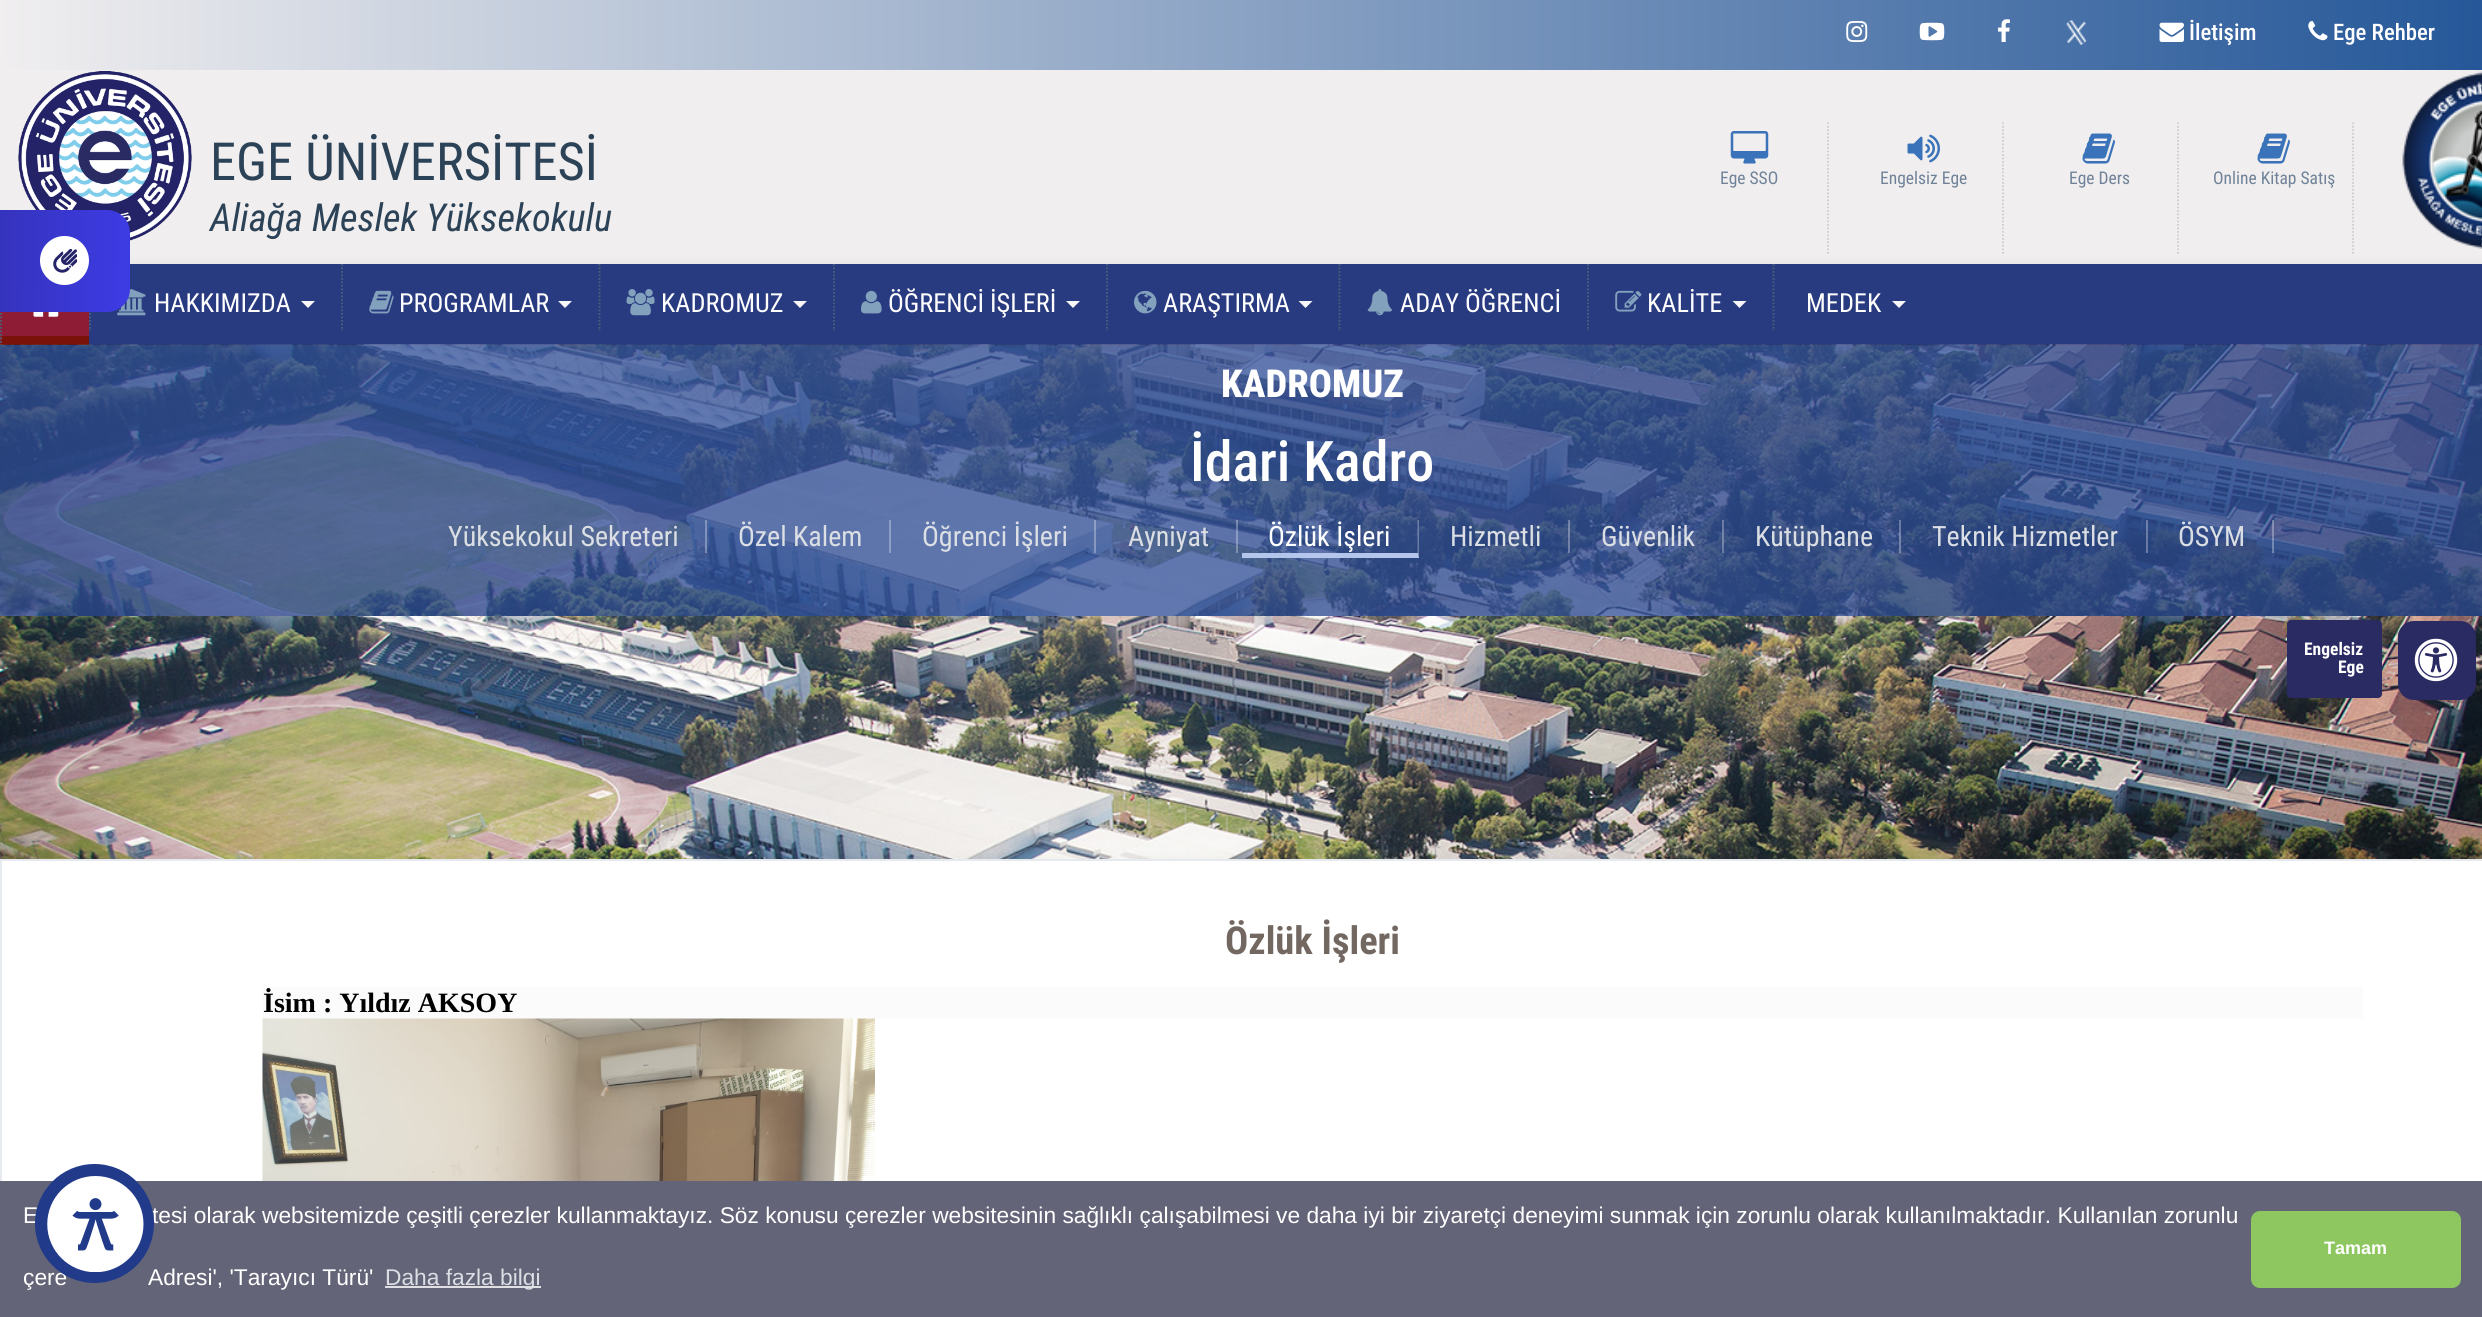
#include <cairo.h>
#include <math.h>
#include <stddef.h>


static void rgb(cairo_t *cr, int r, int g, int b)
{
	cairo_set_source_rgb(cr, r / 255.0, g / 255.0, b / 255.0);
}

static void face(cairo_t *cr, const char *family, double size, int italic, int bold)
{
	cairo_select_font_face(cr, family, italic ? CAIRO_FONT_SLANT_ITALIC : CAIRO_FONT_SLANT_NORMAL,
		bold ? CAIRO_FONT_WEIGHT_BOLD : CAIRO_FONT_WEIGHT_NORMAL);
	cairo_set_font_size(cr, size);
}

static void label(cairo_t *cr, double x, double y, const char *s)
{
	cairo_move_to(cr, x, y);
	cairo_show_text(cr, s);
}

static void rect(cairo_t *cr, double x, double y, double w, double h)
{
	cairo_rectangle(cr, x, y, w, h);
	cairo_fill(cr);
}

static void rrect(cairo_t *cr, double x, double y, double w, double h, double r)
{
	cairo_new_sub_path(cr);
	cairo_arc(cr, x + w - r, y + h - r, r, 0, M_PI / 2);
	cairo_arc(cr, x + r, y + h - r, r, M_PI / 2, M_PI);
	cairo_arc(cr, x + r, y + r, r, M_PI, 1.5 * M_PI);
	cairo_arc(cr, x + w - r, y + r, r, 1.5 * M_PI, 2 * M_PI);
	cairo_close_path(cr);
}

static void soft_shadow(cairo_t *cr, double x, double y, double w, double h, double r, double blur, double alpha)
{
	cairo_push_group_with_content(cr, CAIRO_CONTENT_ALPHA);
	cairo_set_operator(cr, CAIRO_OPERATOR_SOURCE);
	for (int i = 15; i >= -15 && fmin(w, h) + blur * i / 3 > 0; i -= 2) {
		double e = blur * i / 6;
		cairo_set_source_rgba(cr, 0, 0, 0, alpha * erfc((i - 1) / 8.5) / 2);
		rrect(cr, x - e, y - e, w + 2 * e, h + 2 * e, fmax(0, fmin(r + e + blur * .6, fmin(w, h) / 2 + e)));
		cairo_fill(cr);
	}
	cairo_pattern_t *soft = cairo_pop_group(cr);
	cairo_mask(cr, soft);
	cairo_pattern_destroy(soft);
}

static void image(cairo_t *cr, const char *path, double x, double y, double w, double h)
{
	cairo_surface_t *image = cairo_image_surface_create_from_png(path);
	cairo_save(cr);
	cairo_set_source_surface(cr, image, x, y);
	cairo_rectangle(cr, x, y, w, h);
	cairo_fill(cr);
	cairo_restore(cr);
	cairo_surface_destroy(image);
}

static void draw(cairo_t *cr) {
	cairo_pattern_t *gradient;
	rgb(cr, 240, 238, 239);
	cairo_paint(cr);
	image(cr, "image7.png", 18, 71, 174, 170);
	rgb(cr, 0, 0, 0);
	soft_shadow(cr, 0, 270, 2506, 80, 0, 8, 0.1);
	rgb(cr, 41, 59, 128);
	rect(cr, 89, 264, 2393, 81);
	rgb(cr, 142, 28, 52);
	rect(cr, 0, 312, 89, 33);
	rgb(cr, 123, 18, 10);
	cairo_new_path(cr);
	cairo_move_to(cr, 89, 345);
	cairo_line_to(cr, 0, 345);
	cairo_line_to(cr, 2, 336);
	cairo_line_to(cr, 89, 336);
	cairo_close_path(cr);
	cairo_fill(cr);
	cairo_new_path(cr);
	cairo_move_to(cr, 1, 264);
	cairo_line_to(cr, 1, 345);
	rgb(cr, 74, 96, 121);
	cairo_set_line_width(cr, 1.8);
	cairo_set_dash(cr, (double[]){1.75, 1.75}, 2, 0);
	cairo_stroke(cr);
	cairo_new_path(cr);
	cairo_move_to(cr, 90, 264);
	cairo_line_to(cr, 90, 331);
	cairo_stroke(cr);
	image(cr, "image13.png", 117, 289, 29, 27);
	gradient = cairo_pattern_create_linear(-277, 258, 131, 263);
	cairo_pattern_add_color_stop_rgba(gradient, 0, 0.141, 0.137, 0.408, 1);
	cairo_pattern_add_color_stop_rgba(gradient, 0.99, 0.239, 0.231, 0.89, 1);
	cairo_set_source(cr, gradient);
	cairo_pattern_destroy(gradient);
	rrect(cr, -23, 210, 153, 102, 23);
	cairo_fill(cr);
	rgb(cr, 255, 255, 255);
	cairo_arc(cr, 64.5, 260.5, 24.5, 0, 2 * M_PI);
	cairo_fill(cr);
	image(cr, "image0.png", 53, 249, 24, 24);
	gradient = cairo_pattern_create_linear(0, 35, 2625, 35);
	cairo_pattern_add_color_stop_rgba(gradient, 0, 0.941, 0.933, 0.937, 1);
	cairo_pattern_add_color_stop_rgba(gradient, 1, 0.102, 0.31, 0.58, 1);
	cairo_set_source(cr, gradient);
	cairo_pattern_destroy(gradient);
	cairo_new_path(cr);
	cairo_move_to(cr, 0, 0);
	cairo_line_to(cr, 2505, 0);
	cairo_line_to(cr, 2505, 47);
	cairo_curve_to(cr, 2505, 59.5, 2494.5, 70, 2482, 70);
	cairo_line_to(cr, 23, 70);
	cairo_curve_to(cr, 10.5, 70, 0, 59.5, 0, 47);
	cairo_close_path(cr);
	cairo_fill(cr);
	image(cr, "image1.png", 1846, 21, 22, 21);
	image(cr, "image2.png", 1919, 22, 26, 19);
	image(cr, "image3.png", 1998, 19, 12, 23);
	image(cr, "image4.png", 2066, 20, 21, 25);
	image(cr, "image5.png", 2159, 22, 25, 20);
	face(cr, "Roboto Condensed Medium", 22.75, 0, 0);
	rgb(cr, 255, 255, 255);
	label(cr, 2189, 40, "İletişim");
	image(cr, "image6.png", 2308, 21, 20, 20);
	label(cr, 2333, 40, "Ege Rehber");
	face(cr, "Roboto Condensed", 52.5, 0, 0);
	rgb(cr, 44, 66, 87);
	label(cr, 210, 180, "EGE ÜNİVERSİTESİ");
	face(cr, "Roboto Condensed", 38.5, 1, 0);
	label(cr, 210, 231, "Aliağa Meslek Yüksekokulu");
	cairo_new_path(cr);
	cairo_move_to(cr, 1828, 122.5);
	cairo_line_to(cr, 1828, 255.5);
	rgb(cr, 206, 205, 205);
	cairo_stroke(cr);
	image(cr, "image8.png", 1730, 131, 39, 33);
	face(cr, "Roboto Condensed", 17.5, 0, 0);
	rgb(cr, 111, 130, 152);
	label(cr, 1720, 184, "Ege SSO");
	cairo_new_path(cr);
	cairo_move_to(cr, 2003, 122.5);
	cairo_line_to(cr, 2003, 255.5);
	rgb(cr, 206, 205, 205);
	cairo_stroke(cr);
	image(cr, "image9.png", 1907, 134, 33, 29);
	rgb(cr, 111, 130, 152);
	label(cr, 1880, 184, "Engelsiz Ege");
	cairo_new_path(cr);
	cairo_move_to(cr, 2178, 122.5);
	cairo_line_to(cr, 2178, 255.5);
	rgb(cr, 206, 205, 205);
	cairo_stroke(cr);
	image(cr, "image10.png", 2082, 133, 33, 31);
	rgb(cr, 111, 130, 152);
	label(cr, 2069, 184, "Ege Ders");
	cairo_new_path(cr);
	cairo_move_to(cr, 2353, 122.5);
	cairo_line_to(cr, 2353, 255.5);
	rgb(cr, 206, 205, 205);
	cairo_stroke(cr);
	image(cr, "image10.png", 2257, 133, 33, 31);
	rgb(cr, 111, 130, 152);
	label(cr, 2213, 184, "Online Kitap Satış");
	image(cr, "image11.png", 2402, 71, 80, 178);
	image(cr, "image12.png", 33, 312, 26, 5);
	face(cr, "Roboto Condensed", 26.25, 0, 0);
	rgb(cr, 255, 255, 255);
	label(cr, 154, 312, "HAKKIMIZDA");
	rgb(cr, 247, 247, 247);
	cairo_new_path(cr);
	cairo_move_to(cr, 301, 301);
	cairo_line_to(cr, 315, 301);
	cairo_line_to(cr, 308, 308);
	cairo_close_path(cr);
	cairo_fill(cr);
	cairo_new_path(cr);
	cairo_move_to(cr, 342, 264);
	cairo_line_to(cr, 342, 331);
	rgb(cr, 74, 96, 121);
	cairo_stroke(cr);
	image(cr, "image14.png", 369, 290, 25, 24);
	rgb(cr, 255, 255, 255);
	label(cr, 399, 312, "PROGRAMLAR");
	rgb(cr, 247, 247, 247);
	cairo_new_path(cr);
	cairo_move_to(cr, 558, 301);
	cairo_line_to(cr, 572, 301);
	cairo_line_to(cr, 565, 308);
	cairo_close_path(cr);
	cairo_fill(cr);
	cairo_new_path(cr);
	cairo_move_to(cr, 599.5, 264);
	cairo_line_to(cr, 599.5, 331);
	rgb(cr, 74, 96, 121);
	cairo_stroke(cr);
	image(cr, "image15.png", 626, 289, 29, 27);
	rgb(cr, 255, 255, 255);
	label(cr, 661, 312, "KADROMUZ");
	rgb(cr, 247, 247, 247);
	cairo_new_path(cr);
	cairo_move_to(cr, 793, 301);
	cairo_line_to(cr, 807, 301);
	cairo_line_to(cr, 800, 308);
	cairo_close_path(cr);
	cairo_fill(cr);
	cairo_new_path(cr);
	cairo_move_to(cr, 834, 264);
	cairo_line_to(cr, 834, 331);
	rgb(cr, 74, 96, 121);
	cairo_stroke(cr);
	image(cr, "image16.png", 861, 290, 21, 24);
	rgb(cr, 255, 255, 255);
	label(cr, 888, 312, "ÖĞRENCİ İŞLERİ");
	rgb(cr, 247, 247, 247);
	cairo_new_path(cr);
	cairo_move_to(cr, 1066, 301);
	cairo_line_to(cr, 1080, 301);
	cairo_line_to(cr, 1073, 308);
	cairo_close_path(cr);
	cairo_fill(cr);
	cairo_new_path(cr);
	cairo_move_to(cr, 1107, 264);
	cairo_line_to(cr, 1107, 331);
	rgb(cr, 74, 96, 121);
	cairo_stroke(cr);
	image(cr, "image17.png", 1134, 290, 23, 24);
	rgb(cr, 255, 255, 255);
	label(cr, 1163, 312, "ARAŞTIRMA");
	rgb(cr, 247, 247, 247);
	cairo_new_path(cr);
	cairo_move_to(cr, 1298.5, 301);
	cairo_line_to(cr, 1312.5, 301);
	cairo_line_to(cr, 1305.5, 308);
	cairo_close_path(cr);
	cairo_fill(cr);
	cairo_new_path(cr);
	cairo_move_to(cr, 1339.5, 264);
	cairo_line_to(cr, 1339.5, 331);
	rgb(cr, 74, 96, 121);
	cairo_stroke(cr);
	image(cr, "image18.png", 1367, 289, 25, 27);
	rgb(cr, 255, 255, 255);
	label(cr, 1400, 312, "ADAY ÖĞRENCİ");
	cairo_new_path(cr);
	cairo_move_to(cr, 1588, 264);
	cairo_line_to(cr, 1588, 331);
	rgb(cr, 74, 96, 121);
	cairo_stroke(cr);
	image(cr, "image19.png", 1615, 290, 27, 22);
	rgb(cr, 255, 255, 255);
	label(cr, 1647, 312, "KALİTE");
	rgb(cr, 247, 247, 247);
	cairo_new_path(cr);
	cairo_move_to(cr, 1732.5, 301);
	cairo_line_to(cr, 1746.5, 301);
	cairo_line_to(cr, 1739.5, 308);
	cairo_close_path(cr);
	cairo_fill(cr);
	cairo_new_path(cr);
	cairo_move_to(cr, 1773.5, 264);
	cairo_line_to(cr, 1773.5, 331);
	rgb(cr, 74, 96, 121);
	cairo_stroke(cr);
	rgb(cr, 255, 255, 255);
	label(cr, 1806, 312, "MEDEK");
	rgb(cr, 247, 247, 247);
	cairo_new_path(cr);
	cairo_move_to(cr, 1892, 301);
	cairo_line_to(cr, 1906, 301);
	cairo_line_to(cr, 1899, 308);
	cairo_close_path(cr);
	cairo_fill(cr);
	image(cr, "image20.png", 0, 344, 2482, 272);
	face(cr, "Roboto Condensed ExtraBold", 38.5, 0, 0);
	rgb(cr, 255, 255, 255);
	label(cr, 1221, 397, "KADROMUZ");
	face(cr, "Roboto Condensed Medium", 56, 0, 0);
	label(cr, 1190, 481, "İdari Kadro");
	face(cr, "Roboto Condensed", 28, 0, 0);
	rgb(cr, 219, 223, 228);
	label(cr, 448, 546, "Yüksekokul Sekreteri");
	cairo_set_source_rgba(cr, 1, 1, 1, 0.3);
	rect(cr, 705, 520, 2, 33);
	rgb(cr, 219, 223, 228);
	label(cr, 738, 546, "Özel Kalem");
	rgb(cr, 142, 158, 197);
	rect(cr, 889, 520, 2, 33);
	rgb(cr, 219, 223, 228);
	label(cr, 922, 546, "Öğrenci İşleri");
	cairo_set_source_rgba(cr, 1, 1, 1, 0.3);
	rect(cr, 1094, 520, 2, 33);
	rgb(cr, 219, 223, 228);
	label(cr, 1128, 546, "Ayniyat");
	cairo_set_source_rgba(cr, 1, 1, 1, 0.3);
	rect(cr, 1236, 520, 2, 33);
	rgb(cr, 255, 255, 255);
	label(cr, 1268, 546, "Özlük İşleri");
	cairo_set_source_rgba(cr, 1, 1, 1, 0.3);
	cairo_new_path(cr);
	cairo_move_to(cr, 1419, 520);
	cairo_line_to(cr, 1419, 558);
	cairo_line_to(cr, 1417.5, 553);
	cairo_line_to(cr, 1417.5, 520);
	cairo_close_path(cr);
	cairo_fill(cr);
	rgb(cr, 180, 198, 236);
	cairo_new_path(cr);
	cairo_move_to(cr, 1419, 558);
	cairo_line_to(cr, 1242, 558);
	cairo_line_to(cr, 1242, 553);
	cairo_line_to(cr, 1418, 553);
	cairo_close_path(cr);
	cairo_fill(cr);
	rgb(cr, 219, 223, 228);
	label(cr, 1450, 546, "Hizmetli");
	cairo_set_source_rgba(cr, 1, 1, 1, 0.3);
	rect(cr, 1568, 520, 2, 33);
	rgb(cr, 219, 223, 228);
	label(cr, 1601, 546, "Güvenlik");
	cairo_set_source_rgba(cr, 1, 1, 1, 0.3);
	rect(cr, 1722, 520, 2, 33);
	rgb(cr, 219, 223, 228);
	label(cr, 1755, 546, "Kütüphane");
	cairo_set_source_rgba(cr, 1, 1, 1, 0.3);
	rect(cr, 1899, 520, 2, 33);
	rgb(cr, 219, 223, 228);
	label(cr, 1932, 546, "Teknik Hizmetler");
	cairo_set_source_rgba(cr, 1, 1, 1, 0.3);
	rect(cr, 2146, 520, 2, 33);
	rgb(cr, 219, 223, 228);
	label(cr, 2178, 546, "ÖSYM");
	cairo_set_source_rgba(cr, 1, 1, 1, 0.3);
	rect(cr, 2272, 520, 2, 33);
	image(cr, "image21.png", 0, 616, 2482, 243);
	rgb(cr, 0, 0, 0);
	soft_shadow(cr, 0, 865, 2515, 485, 9, 8, 0.1);
	rgb(cr, 255, 255, 255);
	rect(cr, 2, 861, 2480, 320);
	cairo_rectangle(cr, 1, 860, 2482, 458);
	rgb(cr, 230, 233, 237);
	cairo_set_line_width(cr, 2);
	cairo_set_dash(cr, NULL, 0, 0);
	cairo_stroke(cr);
	face(cr, "Roboto Condensed", 38.5, 0, 1);
	rgb(cr, 115, 104, 97);
	label(cr, 1225, 954, "Özlük İşleri");
	rgb(cr, 252, 251, 251);
	rect(cr, 263, 987, 2100, 32);
	face(cr, "Liberation Serif", 28, 0, 1);
	rgb(cr, 0, 0, 0);
	label(cr, 263, 1012, "İsim : Yıldız AKSOY");
	image(cr, "image22.png", 262, 1018, 613, 163);
	rgb(cr, 43, 43, 100);
	rrect(cr, 2398, 621, 78, 79, 16);
	cairo_fill(cr);
	rrect(cr, 2287, 620, 95, 78, 4);
	cairo_fill(cr);
	face(cr, "Roboto Condensed", 17.5, 0, 1);
	rgb(cr, 255, 255, 255);
	label(cr, 2304, 655, "Engelsiz");
	label(cr, 2338, 673, "Ege");
	image(cr, "image23.png", 2414, 638, 44, 44);
	rgb(cr, 100, 100, 120);
	rect(cr, 0, 1181, 2482, 136);
	face(cr, "Liberation Sans", 22.75, 0, 0);
	rgb(cr, 255, 255, 255);
	label(cr, 23, 1223, "E");
	label(cr, 152, 1223, "tesi olarak websitemizde çeşitli çerezler kullanmaktayız. Söz konusu çerezler websitesinin sağlıklı çalışabilmesi ve daha iyi bir ziyaretçi deneyimi sunmak için zorunlu olarak kullanılmaktadır. Kullanılan zorunlu");
	label(cr, 23, 1285, "çere");
	label(cr, 148, 1285, "Adresi', 'Tarayıcı Türü'");
	rgb(cr, 33, 58, 138);
	cairo_new_path(cr);
	cairo_arc(cr, 94.5, 1223.5, 59.5, 0, 2 * M_PI);
	cairo_fill(cr);
	image(cr, "image24.png", 47, 1176, 97, 96);
	rgb(cr, 224, 224, 228);
	rect(cr, 385, 1286, 156, 2);
	rgb(cr, 219, 223, 228);
	label(cr, 385, 1285, "Daha fazla bilgi");
	rgb(cr, 142, 199, 96);
	rrect(cr, 2251, 1211, 210, 77, 9);
	cairo_fill(cr);
	face(cr, "Liberation Sans", 18, 0, 1);
	rgb(cr, 255, 255, 255);
	label(cr, 2324, 1254, "Tamam");
}

int main(void) {
	cairo_surface_t *surface = cairo_image_surface_create(CAIRO_FORMAT_RGB24, 2482, 1317);
	cairo_t *cr = cairo_create(surface);
	cairo_font_options_t *options = cairo_font_options_create();
	cairo_font_options_set_hint_metrics(options, CAIRO_HINT_METRICS_OFF);
	cairo_font_options_set_hint_style(options, CAIRO_HINT_STYLE_NONE);
	cairo_set_font_options(cr, options);
	cairo_set_miter_limit(cr, 4);
	draw(cr);
	cairo_surface_write_to_png(surface, "render.png");
	cairo_font_options_destroy(options);
	cairo_destroy(cr);
	cairo_surface_destroy(surface);
	return 0;
}
